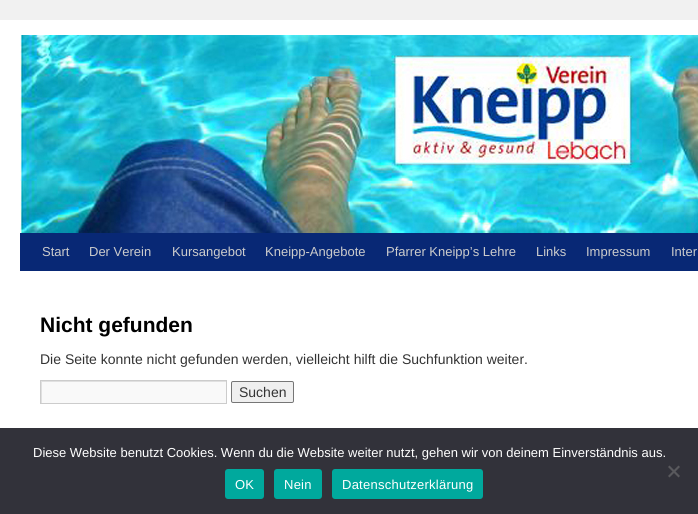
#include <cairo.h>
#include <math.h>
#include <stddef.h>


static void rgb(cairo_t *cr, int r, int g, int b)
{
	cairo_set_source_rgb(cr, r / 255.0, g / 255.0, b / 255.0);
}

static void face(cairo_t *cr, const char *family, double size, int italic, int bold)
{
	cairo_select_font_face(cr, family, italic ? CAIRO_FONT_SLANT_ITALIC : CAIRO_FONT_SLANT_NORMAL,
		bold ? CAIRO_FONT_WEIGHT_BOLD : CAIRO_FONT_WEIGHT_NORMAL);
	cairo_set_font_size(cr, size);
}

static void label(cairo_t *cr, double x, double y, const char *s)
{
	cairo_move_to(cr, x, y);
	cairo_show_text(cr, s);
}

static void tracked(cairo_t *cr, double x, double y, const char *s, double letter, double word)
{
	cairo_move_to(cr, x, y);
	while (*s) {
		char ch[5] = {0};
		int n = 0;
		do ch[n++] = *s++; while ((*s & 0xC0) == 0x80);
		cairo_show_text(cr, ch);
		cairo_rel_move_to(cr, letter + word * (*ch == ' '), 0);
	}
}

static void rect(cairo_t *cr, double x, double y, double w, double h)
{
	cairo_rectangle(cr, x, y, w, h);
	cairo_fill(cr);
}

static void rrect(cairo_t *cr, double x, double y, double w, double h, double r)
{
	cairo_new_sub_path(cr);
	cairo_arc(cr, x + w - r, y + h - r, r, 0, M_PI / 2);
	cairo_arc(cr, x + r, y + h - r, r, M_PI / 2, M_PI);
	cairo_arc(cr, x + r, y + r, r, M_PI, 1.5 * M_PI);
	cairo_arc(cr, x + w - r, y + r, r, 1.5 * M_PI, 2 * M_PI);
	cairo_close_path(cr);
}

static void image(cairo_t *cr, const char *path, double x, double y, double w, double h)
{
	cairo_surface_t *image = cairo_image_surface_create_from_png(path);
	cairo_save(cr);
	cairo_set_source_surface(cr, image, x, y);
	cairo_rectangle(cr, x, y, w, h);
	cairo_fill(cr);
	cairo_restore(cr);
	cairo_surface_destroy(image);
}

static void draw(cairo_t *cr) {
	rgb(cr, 241, 241, 241);
	cairo_paint(cr);
	rgb(cr, 255, 255, 255);
	rect(cr, 0, 20, 698, 408);
	image(cr, "image0.png", 20, 35, 678, 198);
	rgb(cr, 8, 40, 117);
	rect(cr, 20, 233, 678, 38);
	face(cr, "Liberation Sans", 13, 0, 0);
	rgb(cr, 204, 204, 204);
	label(cr, 42, 256, "Start");
	label(cr, 89, 256, "Der Verein");
	label(cr, 172, 256, "Kursangebot");
	label(cr, 265, 256, "Kneipp-Angebote");
	label(cr, 386, 256, "Pfarrer Kneipp’s Lehre");
	label(cr, 536, 256, "Links");
	label(cr, 586, 256, "Impressum");
	label(cr, 671, 256, "Inter");
	face(cr, "Liberation Sans", 21, 0, 1);
	rgb(cr, 0, 0, 0);
	label(cr, 40, 332, "Nicht gefunden");
	face(cr, "Liberation Sans", 14, 0, 0);
	rgb(cr, 51, 51, 51);
	label(cr, 40, 364, "Die Seite konnte nicht gefunden werden, vielleicht hilft die Suchfunktion weiter.");
	rgb(cr, 249, 249, 249);
	rect(cr, 42, 382, 184, 21);
	cairo_save(cr);
	cairo_rectangle(cr, 41, 381, 185, 22);
	cairo_clip(cr);
	rgb(cr, 224, 224, 224);
	cairo_set_fill_rule(cr, CAIRO_FILL_RULE_EVEN_ODD);
	cairo_new_path(cr);
	cairo_move_to(cr, -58, 282);
	cairo_line_to(cr, 325, 282);
	cairo_line_to(cr, 325, 502);
	cairo_line_to(cr, -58, 502);
	cairo_close_path(cr);
	cairo_move_to(cr, 42, 382);
	cairo_line_to(cr, 227, 382);
	cairo_line_to(cr, 227, 404);
	cairo_line_to(cr, 42, 404);
	cairo_close_path(cr);
	cairo_fill(cr);
	cairo_restore(cr);
	cairo_rectangle(cr, 40.5, 380.5, 186, 23);
	rgb(cr, 204, 204, 204);
	cairo_set_line_width(cr, 1);
	cairo_stroke(cr);
	rgb(cr, 239, 239, 239);
	rrect(cr, 231.5, 381.5, 62, 21, 1.5);
	cairo_fill_preserve(cr);
	rgb(cr, 118, 118, 118);
	cairo_stroke(cr);
	rgb(cr, 51, 51, 51);
	label(cr, 239, 397, "Suchen");
	rgb(cr, 50, 50, 58);
	rect(cr, 0, 428, 698, 86);
	face(cr, "Liberation Sans", 13, 0, 0);
	rgb(cr, 255, 255, 255);
	label(cr, 33, 457, "Diese Website benutzt Cookies. Wenn du die Website weiter nutzt, gehen wir von deinem Einverständnis aus.");
	rgb(cr, 89, 89, 93);
	cairo_new_path(cr);
	cairo_move_to(cr, 678.5, 465.5);
	cairo_line_to(cr, 680, 467);
	cairo_line_to(cr, 669.5, 477.5);
	cairo_line_to(cr, 668, 476);
	cairo_close_path(cr);
	cairo_fill(cr);
	cairo_new_path(cr);
	cairo_move_to(cr, 668, 467);
	cairo_line_to(cr, 669.5, 465.5);
	cairo_line_to(cr, 680, 476);
	cairo_line_to(cr, 678.5, 477.5);
	cairo_close_path(cr);
	cairo_fill(cr);
	rgb(cr, 0, 169, 157);
	rrect(cr, 225, 469, 39, 30, 3);
	cairo_fill(cr);
	rgb(cr, 255, 255, 255);
	tracked(cr, 235, 489, "OK", 0.25, 0);
	rgb(cr, 0, 169, 157);
	rrect(cr, 274, 469, 48, 30, 3);
	cairo_fill(cr);
	rgb(cr, 255, 255, 255);
	tracked(cr, 284, 489, "Nein", 0.25, 0);
	rgb(cr, 0, 169, 157);
	rrect(cr, 332, 469, 151, 30, 3);
	cairo_fill(cr);
	rgb(cr, 255, 255, 255);
	tracked(cr, 342, 489, "Datenschutzerklärung", 0.25, 0);
}

int main(void) {
	cairo_surface_t *surface = cairo_image_surface_create(CAIRO_FORMAT_RGB24, 698, 514);
	cairo_t *cr = cairo_create(surface);
	cairo_font_options_t *options = cairo_font_options_create();
	cairo_font_options_set_hint_metrics(options, CAIRO_HINT_METRICS_OFF);
	cairo_font_options_set_hint_style(options, CAIRO_HINT_STYLE_NONE);
	cairo_set_font_options(cr, options);
	cairo_set_miter_limit(cr, 4);
	draw(cr);
	cairo_surface_write_to_png(surface, "render.png");
	cairo_font_options_destroy(options);
	cairo_destroy(cr);
	cairo_surface_destroy(surface);
	return 0;
}
